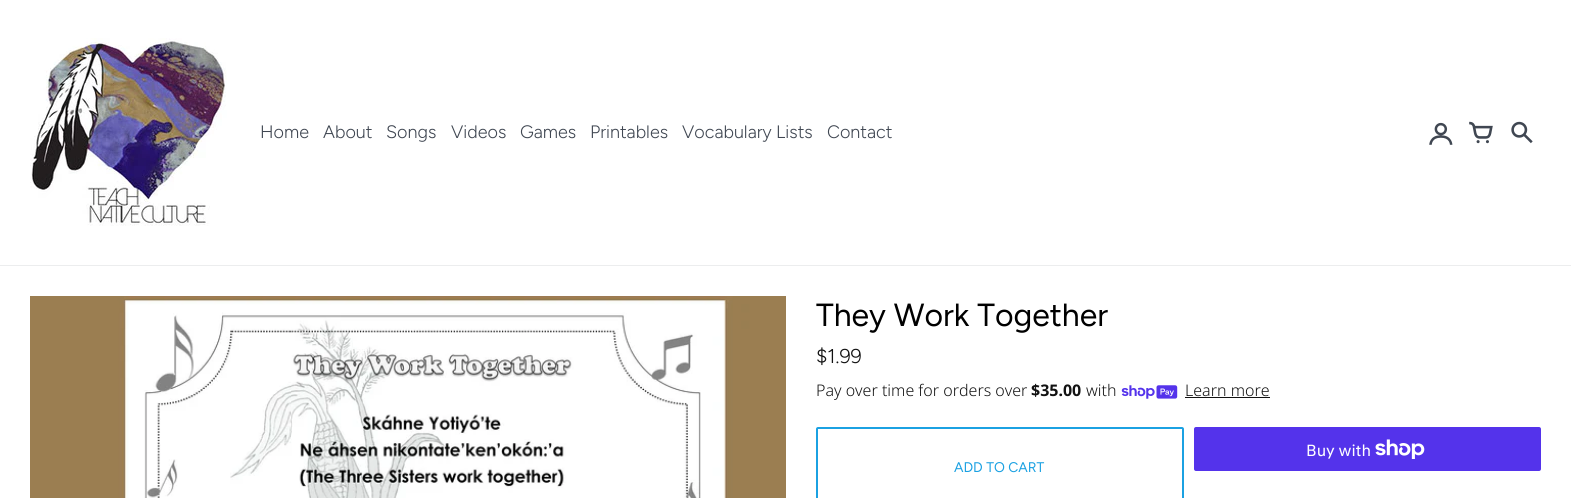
#include <cairo.h>
#include <math.h>
#include <stddef.h>


static void rgb(cairo_t *cr, int r, int g, int b)
{
	cairo_set_source_rgb(cr, r / 255.0, g / 255.0, b / 255.0);
}

static void face(cairo_t *cr, const char *family, double size, int italic, int bold)
{
	cairo_select_font_face(cr, family, italic ? CAIRO_FONT_SLANT_ITALIC : CAIRO_FONT_SLANT_NORMAL,
		bold ? CAIRO_FONT_WEIGHT_BOLD : CAIRO_FONT_WEIGHT_NORMAL);
	cairo_set_font_size(cr, size);
}

static void label(cairo_t *cr, double x, double y, const char *s)
{
	cairo_move_to(cr, x, y);
	cairo_show_text(cr, s);
}

static void rect(cairo_t *cr, double x, double y, double w, double h)
{
	cairo_rectangle(cr, x, y, w, h);
	cairo_fill(cr);
}

static void rrect(cairo_t *cr, double x, double y, double w, double h, double r)
{
	cairo_new_sub_path(cr);
	cairo_arc(cr, x + w - r, y + h - r, r, 0, M_PI / 2);
	cairo_arc(cr, x + r, y + h - r, r, M_PI / 2, M_PI);
	cairo_arc(cr, x + r, y + r, r, M_PI, 1.5 * M_PI);
	cairo_arc(cr, x + w - r, y + r, r, 1.5 * M_PI, 2 * M_PI);
	cairo_close_path(cr);
}

static void image(cairo_t *cr, const char *path, double x, double y, double w, double h)
{
	cairo_surface_t *image = cairo_image_surface_create_from_png(path);
	cairo_save(cr);
	cairo_set_source_surface(cr, image, x, y);
	cairo_rectangle(cr, x, y, w, h);
	cairo_fill(cr);
	cairo_restore(cr);
	cairo_surface_destroy(image);
}

static void draw(cairo_t *cr) {
	rgb(cr, 255, 255, 255);
	cairo_paint(cr);
	rgb(cr, 236, 237, 238);
	rect(cr, 0, 265, 1571, 1);
	image(cr, "image0.png", 30, 38, 197, 188);
	face(cr, "Figtree Light", 18, 0, 0);
	rgb(cr, 64, 71, 82);
	label(cr, 260, 138, "Home");
	label(cr, 323, 138, "About");
	label(cr, 386, 138, "Songs");
	label(cr, 451, 138, "Videos");
	label(cr, 520, 138, "Games");
	label(cr, 590, 138, "Printables");
	label(cr, 682, 138, "Vocabulary Lists");
	label(cr, 827, 138, "Contact");
	image(cr, "image1.png", 1429, 122, 24, 23);
	image(cr, "image2.png", 1469, 121, 24, 23);
	image(cr, "image3.png", 1511, 121, 22, 23);
	image(cr, "image4.png", 30, 296, 756, 202);
	face(cr, "Figtree", 32, 0, 0);
	rgb(cr, 0, 0, 0);
	label(cr, 816, 326, "They Work Together");
	face(cr, "Figtree Light", 20, 0, 0);
	rgb(cr, 18, 18, 18);
	label(cr, 816, 363, "$1.99");
	face(cr, "Noto Sans Light", 16, 0, 0);
	label(cr, 816, 396, "Pay over time for orders over");
	face(cr, "Noto Sans", 16, 0, 1);
	label(cr, 1031, 396, "$35.00");
	face(cr, "Noto Sans Light", 16, 0, 0);
	label(cr, 1086, 396, "with");
	image(cr, "image5.png", 1121, 385, 57, 14);
	label(cr, 1185, 396, "Learn more");
	rect(cr, 1185, 397, 85, 1);
	rgb(cr, 84, 51, 235);
	rrect(cr, 1194, 427, 347, 44, 2);
	cairo_fill(cr);
	face(cr, "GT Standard", 16, 0, 0);
	rgb(cr, 255, 255, 255);
	label(cr, 1306, 456, "Buy with");
	image(cr, "image6.png", 1375, 439, 50, 20);
	rrect(cr, 817, 428, 366, 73, 1);
	rgb(cr, 27, 161, 226);
	cairo_stroke(cr);
	face(cr, "Figtree", 14, 0, 0);
	label(cr, 954, 472, "ADD TO CART");
}

int main(void) {
	cairo_surface_t *surface = cairo_image_surface_create(CAIRO_FORMAT_RGB24, 1571, 498);
	cairo_t *cr = cairo_create(surface);
	cairo_font_options_t *options = cairo_font_options_create();
	cairo_font_options_set_hint_metrics(options, CAIRO_HINT_METRICS_OFF);
	cairo_font_options_set_hint_style(options, CAIRO_HINT_STYLE_NONE);
	cairo_set_font_options(cr, options);
	cairo_set_miter_limit(cr, 4);
	draw(cr);
	cairo_surface_write_to_png(surface, "render.png");
	cairo_font_options_destroy(options);
	cairo_destroy(cr);
	cairo_surface_destroy(surface);
	return 0;
}
